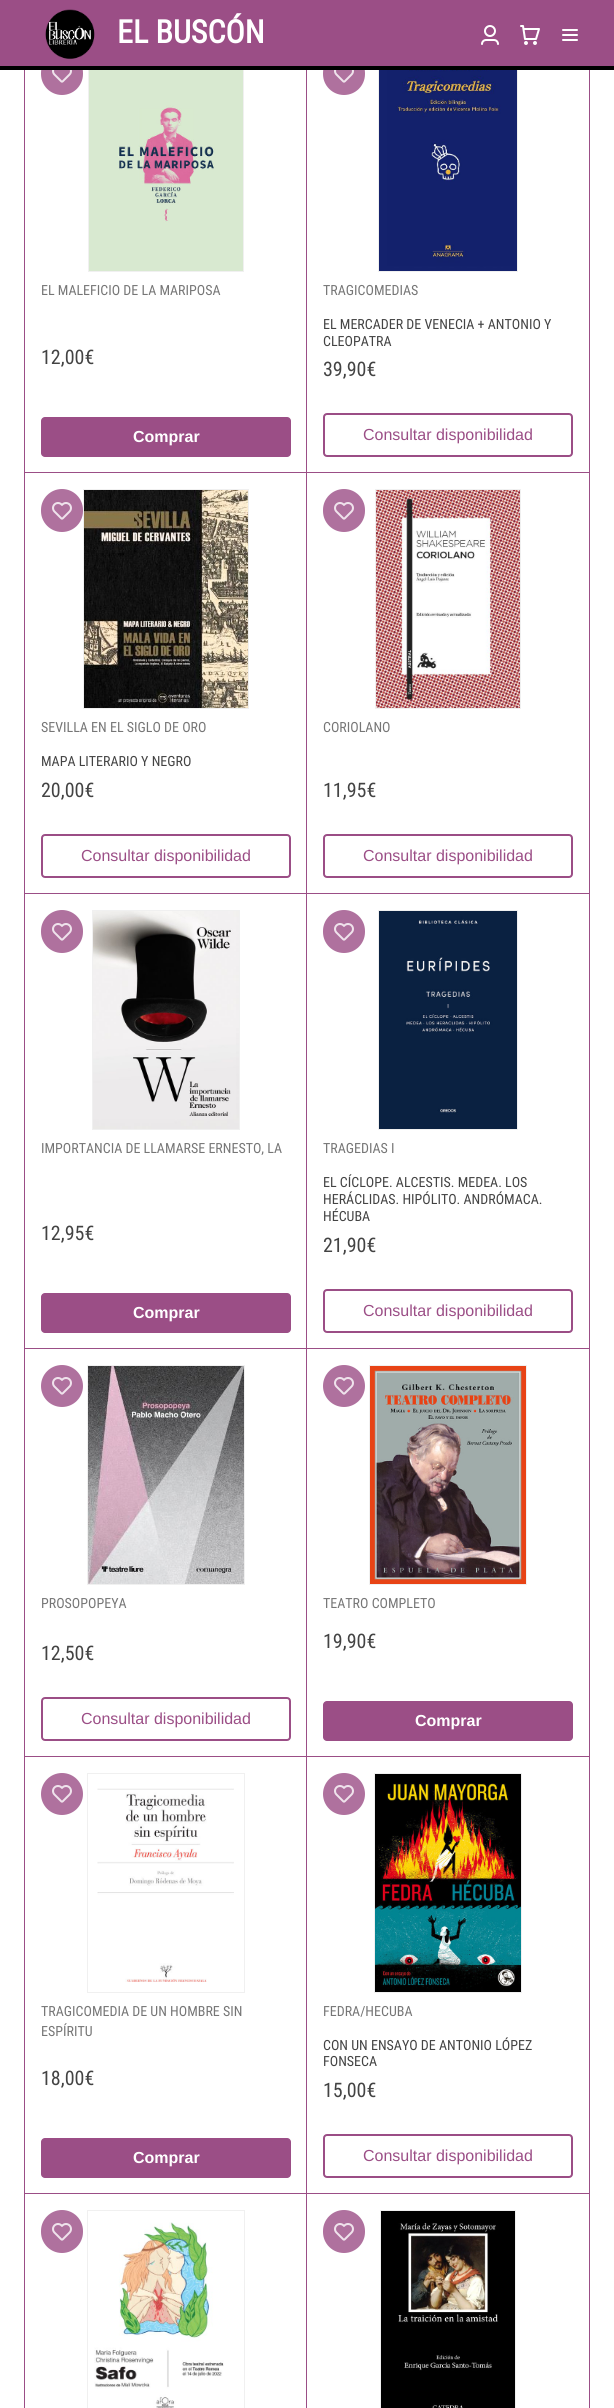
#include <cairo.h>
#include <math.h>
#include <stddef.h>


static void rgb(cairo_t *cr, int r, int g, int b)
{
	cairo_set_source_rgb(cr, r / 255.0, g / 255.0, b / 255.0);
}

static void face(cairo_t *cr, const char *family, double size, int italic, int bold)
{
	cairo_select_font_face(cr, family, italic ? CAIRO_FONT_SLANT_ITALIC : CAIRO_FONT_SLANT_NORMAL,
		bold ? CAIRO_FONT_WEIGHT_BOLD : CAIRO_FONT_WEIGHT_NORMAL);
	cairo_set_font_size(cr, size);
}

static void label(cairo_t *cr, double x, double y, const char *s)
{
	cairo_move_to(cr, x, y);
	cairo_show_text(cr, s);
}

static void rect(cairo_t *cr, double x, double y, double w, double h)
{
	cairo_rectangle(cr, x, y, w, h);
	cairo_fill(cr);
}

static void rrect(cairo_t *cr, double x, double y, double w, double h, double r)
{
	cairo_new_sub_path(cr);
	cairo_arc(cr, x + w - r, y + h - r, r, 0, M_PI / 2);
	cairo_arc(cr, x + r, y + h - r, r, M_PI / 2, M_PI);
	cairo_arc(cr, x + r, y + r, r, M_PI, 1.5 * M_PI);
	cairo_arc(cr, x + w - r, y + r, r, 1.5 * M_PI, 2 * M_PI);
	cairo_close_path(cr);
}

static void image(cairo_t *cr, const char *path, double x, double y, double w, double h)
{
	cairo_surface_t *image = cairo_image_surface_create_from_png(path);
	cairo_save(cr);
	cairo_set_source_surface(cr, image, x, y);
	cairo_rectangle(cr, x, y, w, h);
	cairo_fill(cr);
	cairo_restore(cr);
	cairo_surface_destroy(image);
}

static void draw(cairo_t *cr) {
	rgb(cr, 255, 255, 255);
	cairo_paint(cr);
	cairo_rectangle(cr, 24.5, 35.5, 565, 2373);
	rgb(cr, 155, 78, 134);
	cairo_set_line_width(cr, 1);
	cairo_stroke(cr);
	rgb(cr, 175, 113, 158);
	rrect(cr, 41, 52, 42, 43, 21);
	cairo_fill(cr);
	cairo_rectangle(cr, 88.5, 52.5, 155, 219);
	rgb(cr, 240, 240, 240);
	cairo_stroke(cr);
	rrect(cr, 324, 414, 248, 42, 3);
	rgb(cr, 155, 78, 134);
	cairo_set_line_width(cr, 2);
	cairo_stroke(cr);
	cairo_save(cr);
	cairo_rectangle(cr, 25, 36, 564, 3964);
	cairo_clip(cr);
	cairo_rectangle(cr, 306.5, 35.5, 283, 438);
	cairo_set_line_width(cr, 1);
	cairo_stroke(cr);
	cairo_restore(cr);
	rgb(cr, 175, 113, 158);
	rrect(cr, 323, 52, 42, 43, 21);
	cairo_fill(cr);
	cairo_rectangle(cr, 378.5, 52.5, 139, 219);
	rgb(cr, 240, 240, 240);
	cairo_set_line_width(cr, 1);
	cairo_stroke(cr);
	rgb(cr, 155, 78, 134);
	rect(cr, 0, 0, 614, 66);
	rgb(cr, 0, 0, 0);
	rect(cr, 0, 66, 614, 4);
	image(cr, "image0.png", 45, 9, 50, 51);
	face(cr, "Roboto Condensed", 32, 0, 1);
	rgb(cr, 255, 255, 255);
	label(cr, 117, 43, "EL BUSCÓN");
	image(cr, "image1.png", 481, 25, 18, 20);
	image(cr, "image2.png", 520, 25, 20, 20);
	image(cr, "image3.png", 562, 29, 16, 12);
	image(cr, "image4.png", 52, 70, 20, 13);
	image(cr, "image5.png", 89, 70, 154, 201);
	face(cr, "Roboto Condensed", 14, 0, 0);
	rgb(cr, 118, 118, 118);
	label(cr, 41, 295, "EL MALEFICIO DE LA MARIPOSA");
	face(cr, "Roboto Condensed", 20, 0, 0);
	rgb(cr, 67, 67, 67);
	label(cr, 41, 364, "12,00€");
	rgb(cr, 155, 78, 134);
	rrect(cr, 41, 417, 250, 40, 4);
	cairo_fill(cr);
	face(cr, "Liberation Sans", 16, 0, 1);
	rgb(cr, 255, 255, 255);
	label(cr, 133, 442, "Comprar");
	image(cr, "image4.png", 334, 70, 20, 13);
	image(cr, "image6.png", 379, 70, 138, 201);
	face(cr, "Roboto Condensed", 14, 0, 0);
	rgb(cr, 118, 118, 118);
	label(cr, 323, 295, "TRAGICOMEDIAS");
	rgb(cr, 67, 67, 67);
	label(cr, 323, 329, "EL MERCADER DE VENECIA + ANTONIO Y");
	label(cr, 323, 346, "CLEOPATRA");
	face(cr, "Roboto Condensed", 20, 0, 0);
	label(cr, 323, 376, "39,90€");
	face(cr, "Liberation Sans", 16, 0, 0);
	rgb(cr, 155, 78, 134);
	label(cr, 363, 440, "Consultar disponibilidad");
	rrect(cr, 42, 835, 248, 42, 3);
	cairo_set_line_width(cr, 2);
	cairo_stroke(cr);
	cairo_save(cr);
	cairo_rectangle(cr, 25, 36, 564, 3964);
	cairo_clip(cr);
	cairo_rectangle(cr, 24.5, 472.5, 283, 422);
	cairo_set_line_width(cr, 1);
	cairo_stroke(cr);
	cairo_restore(cr);
	rgb(cr, 175, 113, 158);
	rrect(cr, 41, 489, 42, 43, 21);
	cairo_fill(cr);
	image(cr, "image7.png", 52, 502, 20, 18);
	cairo_rectangle(cr, 83.5, 489.5, 165, 219);
	rgb(cr, 240, 240, 240);
	cairo_set_line_width(cr, 1);
	cairo_stroke(cr);
	image(cr, "image8.png", 84, 490, 164, 218);
	face(cr, "Roboto Condensed", 14, 0, 0);
	rgb(cr, 118, 118, 118);
	label(cr, 41, 732, "SEVILLA EN EL SIGLO DE ORO");
	rgb(cr, 67, 67, 67);
	label(cr, 41, 766, "MAPA LITERARIO Y NEGRO");
	face(cr, "Roboto Condensed", 20, 0, 0);
	label(cr, 41, 797, "20,00€");
	face(cr, "Liberation Sans", 16, 0, 0);
	rgb(cr, 155, 78, 134);
	label(cr, 81, 861, "Consultar disponibilidad");
	rgb(cr, 255, 255, 255);
	rect(cr, 307, 473, 282, 420);
	rrect(cr, 324, 835, 248, 42, 3);
	rgb(cr, 155, 78, 134);
	cairo_set_line_width(cr, 2);
	cairo_stroke(cr);
	cairo_save(cr);
	cairo_rectangle(cr, 25, 36, 564, 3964);
	cairo_clip(cr);
	cairo_rectangle(cr, 306.5, 472.5, 283, 422);
	cairo_set_line_width(cr, 1);
	cairo_stroke(cr);
	cairo_restore(cr);
	rgb(cr, 175, 113, 158);
	rrect(cr, 323, 489, 42, 43, 21);
	cairo_fill(cr);
	image(cr, "image7.png", 334, 502, 20, 18);
	cairo_rectangle(cr, 375.5, 489.5, 145, 219);
	rgb(cr, 240, 240, 240);
	cairo_set_line_width(cr, 1);
	cairo_stroke(cr);
	image(cr, "image9.png", 376, 490, 144, 218);
	face(cr, "Roboto Condensed", 14, 0, 0);
	rgb(cr, 118, 118, 118);
	label(cr, 323, 732, "CORIOLANO");
	face(cr, "Roboto Condensed", 20, 0, 0);
	rgb(cr, 67, 67, 67);
	label(cr, 323, 797, "11,95€");
	face(cr, "Liberation Sans", 16, 0, 0);
	rgb(cr, 155, 78, 134);
	label(cr, 363, 861, "Consultar disponibilidad");
	rgb(cr, 255, 255, 255);
	rect(cr, 25, 894, 281, 1);
	rgb(cr, 155, 78, 134);
	rrect(cr, 41, 1293, 250, 40, 4);
	cairo_fill(cr);
	cairo_save(cr);
	cairo_rectangle(cr, 25, 36, 564, 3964);
	cairo_clip(cr);
	cairo_rectangle(cr, 24.5, 893.5, 283, 456);
	cairo_stroke(cr);
	cairo_restore(cr);
	rgb(cr, 175, 113, 158);
	rrect(cr, 41, 910, 42, 43, 21);
	cairo_fill(cr);
	image(cr, "image7.png", 52, 923, 20, 18);
	cairo_rectangle(cr, 92.5, 910.5, 147, 219);
	rgb(cr, 240, 240, 240);
	cairo_stroke(cr);
	image(cr, "image10.png", 93, 911, 146, 218);
	face(cr, "Roboto Condensed", 14, 0, 0);
	rgb(cr, 118, 118, 118);
	label(cr, 41, 1153, "IMPORTANCIA DE LLAMARSE ERNESTO, LA");
	face(cr, "Roboto Condensed", 20, 0, 0);
	rgb(cr, 67, 67, 67);
	label(cr, 41, 1240, "12,95€");
	face(cr, "Liberation Sans", 16, 0, 1);
	rgb(cr, 255, 255, 255);
	label(cr, 133, 1318, "Comprar");
	rect(cr, 307, 894, 282, 454);
	rrect(cr, 324, 1290, 248, 42, 3);
	rgb(cr, 155, 78, 134);
	cairo_set_line_width(cr, 2);
	cairo_stroke(cr);
	cairo_save(cr);
	cairo_rectangle(cr, 25, 36, 564, 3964);
	cairo_clip(cr);
	cairo_rectangle(cr, 306.5, 893.5, 283, 456);
	cairo_set_line_width(cr, 1);
	cairo_stroke(cr);
	cairo_restore(cr);
	rgb(cr, 175, 113, 158);
	rrect(cr, 323, 910, 42, 43, 21);
	cairo_fill(cr);
	image(cr, "image7.png", 334, 923, 20, 18);
	cairo_rectangle(cr, 378.5, 910.5, 139, 219);
	rgb(cr, 240, 240, 240);
	cairo_set_line_width(cr, 1);
	cairo_stroke(cr);
	image(cr, "image11.png", 379, 911, 138, 218);
	face(cr, "Roboto Condensed", 14, 0, 0);
	rgb(cr, 118, 118, 118);
	label(cr, 323, 1153, "TRAGEDIAS I");
	rgb(cr, 67, 67, 67);
	label(cr, 323, 1187, "EL CÍCLOPE. ALCESTIS. MEDEA. LOS");
	label(cr, 323, 1204, "HERÁCLIDAS. HIPÓLITO. ANDRÓMACA.");
	label(cr, 323, 1221, "HÉCUBA");
	face(cr, "Roboto Condensed", 20, 0, 0);
	label(cr, 323, 1252, "21,90€");
	face(cr, "Liberation Sans", 16, 0, 0);
	rgb(cr, 155, 78, 134);
	label(cr, 363, 1316, "Consultar disponibilidad");
	rgb(cr, 255, 255, 255);
	rect(cr, 25, 1349, 281, 1);
	rrect(cr, 42, 1698, 248, 42, 3);
	rgb(cr, 155, 78, 134);
	cairo_set_line_width(cr, 2);
	cairo_stroke(cr);
	cairo_save(cr);
	cairo_rectangle(cr, 25, 36, 564, 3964);
	cairo_clip(cr);
	cairo_rectangle(cr, 24.5, 1348.5, 283, 409);
	cairo_set_line_width(cr, 1);
	cairo_stroke(cr);
	cairo_restore(cr);
	rgb(cr, 175, 113, 158);
	cairo_arc(cr, 62, 1386, 21, 0, 2 * M_PI);
	cairo_fill(cr);
	image(cr, "image7.png", 52, 1377, 20, 18);
	cairo_rectangle(cr, 87.5, 1365.5, 157, 219);
	rgb(cr, 240, 240, 240);
	cairo_set_line_width(cr, 1);
	cairo_stroke(cr);
	image(cr, "image12.png", 88, 1366, 156, 218);
	face(cr, "Roboto Condensed", 14, 0, 0);
	rgb(cr, 118, 118, 118);
	label(cr, 41, 1608, "PROSOPOPEYA");
	face(cr, "Roboto Condensed", 20, 0, 0);
	rgb(cr, 67, 67, 67);
	label(cr, 41, 1660, "12,50€");
	face(cr, "Liberation Sans", 16, 0, 0);
	rgb(cr, 155, 78, 134);
	label(cr, 81, 1724, "Consultar disponibilidad");
	rgb(cr, 255, 255, 255);
	rect(cr, 307, 1349, 282, 407);
	rgb(cr, 155, 78, 134);
	rrect(cr, 323, 1701, 250, 40, 4);
	cairo_fill(cr);
	cairo_save(cr);
	cairo_rectangle(cr, 25, 36, 564, 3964);
	cairo_clip(cr);
	cairo_rectangle(cr, 306.5, 1348.5, 283, 409);
	cairo_stroke(cr);
	cairo_restore(cr);
	rgb(cr, 175, 113, 158);
	cairo_arc(cr, 344, 1386, 21, 0, 2 * M_PI);
	cairo_fill(cr);
	image(cr, "image7.png", 334, 1377, 20, 18);
	cairo_rectangle(cr, 369.5, 1365.5, 157, 219);
	rgb(cr, 240, 240, 240);
	cairo_stroke(cr);
	image(cr, "image13.png", 370, 1366, 156, 218);
	face(cr, "Roboto Condensed", 14, 0, 0);
	rgb(cr, 118, 118, 118);
	label(cr, 323, 1608, "TEATRO COMPLETO");
	face(cr, "Roboto Condensed", 20, 0, 0);
	rgb(cr, 67, 67, 67);
	label(cr, 323, 1648, "19,90€");
	face(cr, "Liberation Sans", 16, 0, 1);
	rgb(cr, 255, 255, 255);
	label(cr, 415, 1726, "Comprar");
	rect(cr, 25, 1757, 281, 1);
	rgb(cr, 155, 78, 134);
	rrect(cr, 41, 2138, 250, 40, 4);
	cairo_fill(cr);
	cairo_save(cr);
	cairo_rectangle(cr, 25, 36, 564, 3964);
	cairo_clip(cr);
	cairo_rectangle(cr, 24.5, 1756.5, 283, 438);
	cairo_stroke(cr);
	cairo_restore(cr);
	rgb(cr, 175, 113, 158);
	cairo_arc(cr, 62, 1794, 21, 0, 2 * M_PI);
	cairo_fill(cr);
	image(cr, "image7.png", 52, 1785, 20, 18);
	cairo_rectangle(cr, 87.5, 1773.5, 157, 219);
	rgb(cr, 240, 240, 240);
	cairo_stroke(cr);
	image(cr, "image14.png", 97, 1788, 137, 194);
	face(cr, "Roboto Condensed", 14, 0, 0);
	rgb(cr, 118, 118, 118);
	label(cr, 41, 2016, "TRAGICOMEDIA DE UN HOMBRE SIN");
	label(cr, 41, 2036, "ESPÍRITU");
	face(cr, "Roboto Condensed", 20, 0, 0);
	rgb(cr, 67, 67, 67);
	label(cr, 41, 2085, "18,00€");
	face(cr, "Liberation Sans", 16, 0, 1);
	rgb(cr, 255, 255, 255);
	label(cr, 133, 2163, "Comprar");
	rect(cr, 307, 1757, 282, 436);
	rrect(cr, 324, 2135, 248, 42, 3);
	rgb(cr, 155, 78, 134);
	cairo_set_line_width(cr, 2);
	cairo_stroke(cr);
	cairo_save(cr);
	cairo_rectangle(cr, 25, 36, 564, 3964);
	cairo_clip(cr);
	cairo_rectangle(cr, 306.5, 1756.5, 283, 438);
	cairo_set_line_width(cr, 1);
	cairo_stroke(cr);
	cairo_restore(cr);
	rgb(cr, 175, 113, 158);
	cairo_arc(cr, 344, 1794, 21, 0, 2 * M_PI);
	cairo_fill(cr);
	image(cr, "image7.png", 334, 1785, 20, 18);
	cairo_rectangle(cr, 374.5, 1773.5, 147, 219);
	rgb(cr, 240, 240, 240);
	cairo_set_line_width(cr, 1);
	cairo_stroke(cr);
	image(cr, "image15.png", 375, 1774, 146, 218);
	face(cr, "Roboto Condensed", 14, 0, 0);
	rgb(cr, 118, 118, 118);
	label(cr, 323, 2016, "FEDRA/HECUBA");
	rgb(cr, 67, 67, 67);
	label(cr, 323, 2050, "CON UN ENSAYO DE ANTONIO LÓPEZ");
	label(cr, 323, 2066, "FONSECA");
	face(cr, "Roboto Condensed", 20, 0, 0);
	label(cr, 323, 2097, "15,00€");
	face(cr, "Liberation Sans", 16, 0, 0);
	rgb(cr, 155, 78, 134);
	label(cr, 363, 2161, "Consultar disponibilidad");
	rgb(cr, 255, 255, 255);
	rect(cr, 25, 2194, 281, 1);
	cairo_save(cr);
	cairo_rectangle(cr, 25, 36, 564, 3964);
	cairo_clip(cr);
	cairo_rectangle(cr, 24.5, 2193.5, 283, 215);
	rgb(cr, 155, 78, 134);
	cairo_stroke(cr);
	cairo_restore(cr);
	rgb(cr, 175, 113, 158);
	rrect(cr, 41, 2210, 42, 43, 21);
	cairo_fill(cr);
	image(cr, "image7.png", 52, 2223, 20, 18);
	cairo_rectangle(cr, 87.5, 2210.5, 157, 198);
	rgb(cr, 240, 240, 240);
	cairo_stroke(cr);
	image(cr, "image16.png", 94, 2222, 130, 186);
	rgb(cr, 255, 255, 255);
	rect(cr, 307, 2194, 282, 214);
	cairo_save(cr);
	cairo_rectangle(cr, 25, 36, 564, 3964);
	cairo_clip(cr);
	cairo_rectangle(cr, 306.5, 2193.5, 283, 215);
	rgb(cr, 155, 78, 134);
	cairo_stroke(cr);
	cairo_restore(cr);
	rgb(cr, 175, 113, 158);
	rrect(cr, 323, 2210, 42, 43, 21);
	cairo_fill(cr);
	image(cr, "image7.png", 334, 2223, 20, 18);
	cairo_rectangle(cr, 380.5, 2210.5, 135, 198);
	rgb(cr, 240, 240, 240);
	cairo_stroke(cr);
	image(cr, "image17.png", 381, 2211, 134, 197);
}

int main(void) {
	cairo_surface_t *surface = cairo_image_surface_create(CAIRO_FORMAT_RGB24, 614, 2408);
	cairo_t *cr = cairo_create(surface);
	cairo_font_options_t *options = cairo_font_options_create();
	cairo_font_options_set_hint_metrics(options, CAIRO_HINT_METRICS_OFF);
	cairo_font_options_set_hint_style(options, CAIRO_HINT_STYLE_NONE);
	cairo_set_font_options(cr, options);
	cairo_set_miter_limit(cr, 4);
	draw(cr);
	cairo_surface_write_to_png(surface, "render.png");
	cairo_font_options_destroy(options);
	cairo_destroy(cr);
	cairo_surface_destroy(surface);
	return 0;
}
